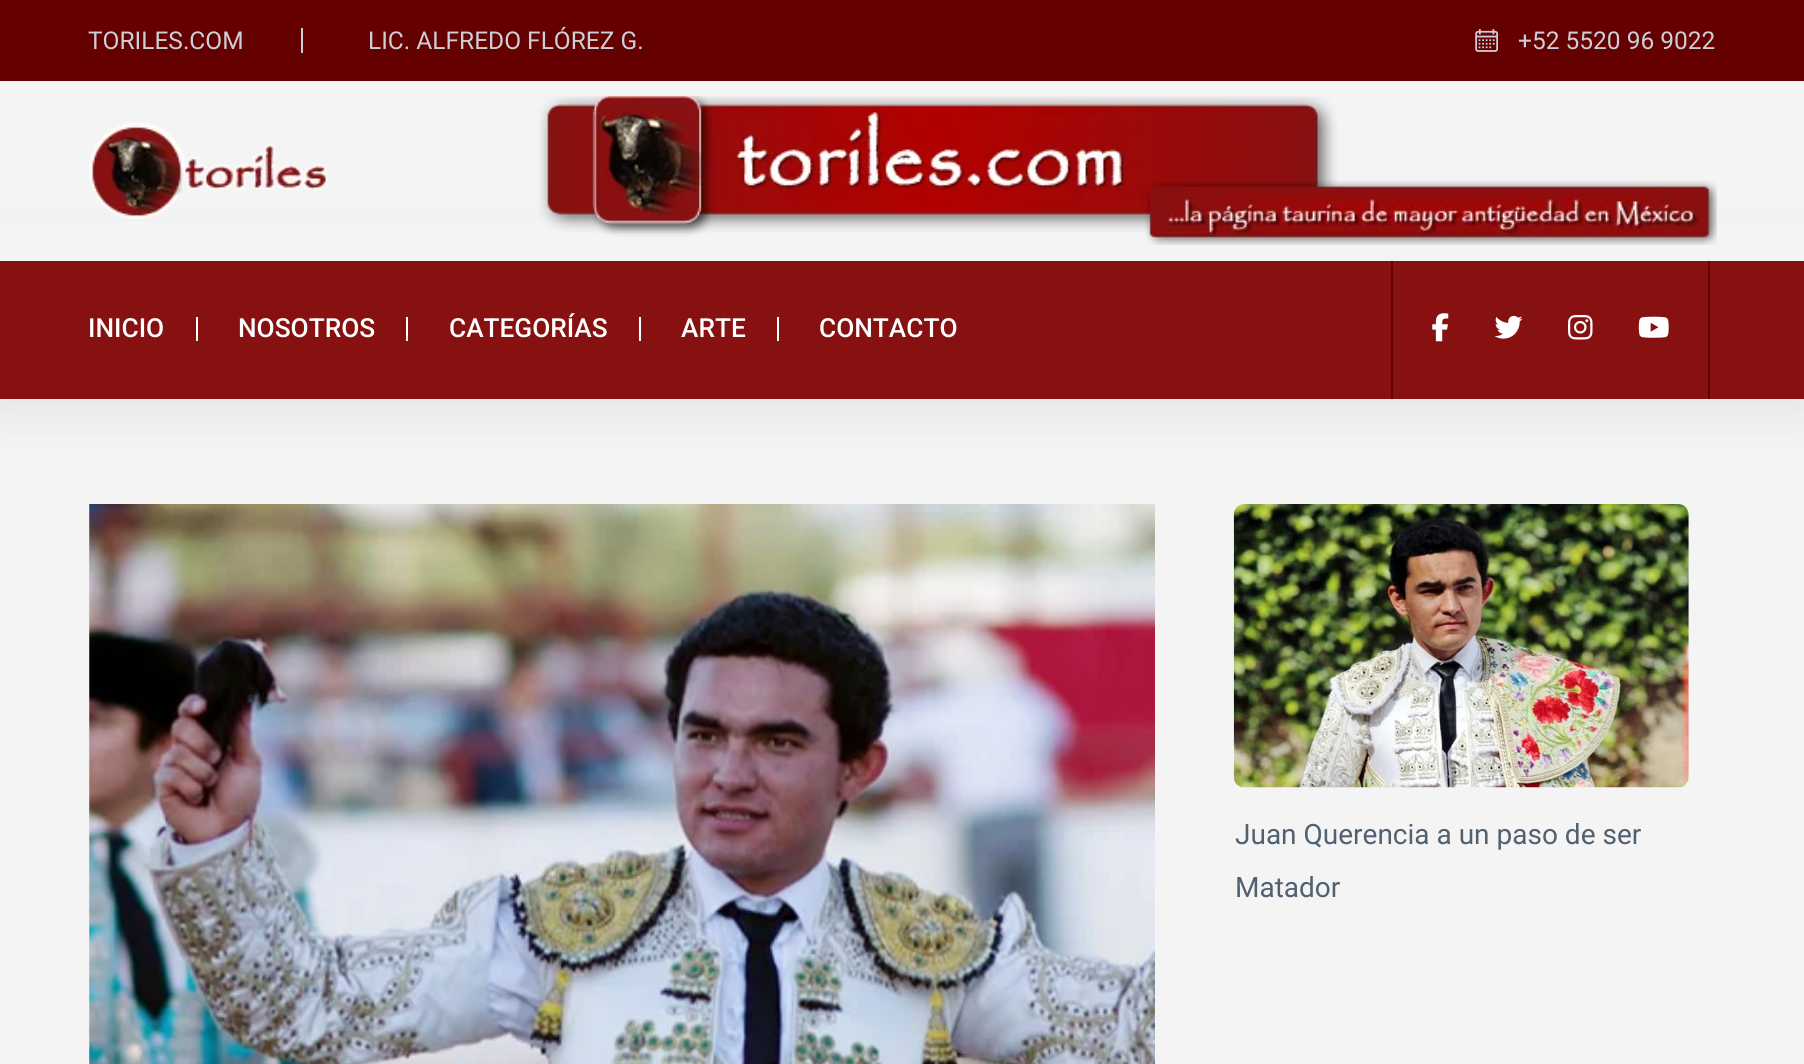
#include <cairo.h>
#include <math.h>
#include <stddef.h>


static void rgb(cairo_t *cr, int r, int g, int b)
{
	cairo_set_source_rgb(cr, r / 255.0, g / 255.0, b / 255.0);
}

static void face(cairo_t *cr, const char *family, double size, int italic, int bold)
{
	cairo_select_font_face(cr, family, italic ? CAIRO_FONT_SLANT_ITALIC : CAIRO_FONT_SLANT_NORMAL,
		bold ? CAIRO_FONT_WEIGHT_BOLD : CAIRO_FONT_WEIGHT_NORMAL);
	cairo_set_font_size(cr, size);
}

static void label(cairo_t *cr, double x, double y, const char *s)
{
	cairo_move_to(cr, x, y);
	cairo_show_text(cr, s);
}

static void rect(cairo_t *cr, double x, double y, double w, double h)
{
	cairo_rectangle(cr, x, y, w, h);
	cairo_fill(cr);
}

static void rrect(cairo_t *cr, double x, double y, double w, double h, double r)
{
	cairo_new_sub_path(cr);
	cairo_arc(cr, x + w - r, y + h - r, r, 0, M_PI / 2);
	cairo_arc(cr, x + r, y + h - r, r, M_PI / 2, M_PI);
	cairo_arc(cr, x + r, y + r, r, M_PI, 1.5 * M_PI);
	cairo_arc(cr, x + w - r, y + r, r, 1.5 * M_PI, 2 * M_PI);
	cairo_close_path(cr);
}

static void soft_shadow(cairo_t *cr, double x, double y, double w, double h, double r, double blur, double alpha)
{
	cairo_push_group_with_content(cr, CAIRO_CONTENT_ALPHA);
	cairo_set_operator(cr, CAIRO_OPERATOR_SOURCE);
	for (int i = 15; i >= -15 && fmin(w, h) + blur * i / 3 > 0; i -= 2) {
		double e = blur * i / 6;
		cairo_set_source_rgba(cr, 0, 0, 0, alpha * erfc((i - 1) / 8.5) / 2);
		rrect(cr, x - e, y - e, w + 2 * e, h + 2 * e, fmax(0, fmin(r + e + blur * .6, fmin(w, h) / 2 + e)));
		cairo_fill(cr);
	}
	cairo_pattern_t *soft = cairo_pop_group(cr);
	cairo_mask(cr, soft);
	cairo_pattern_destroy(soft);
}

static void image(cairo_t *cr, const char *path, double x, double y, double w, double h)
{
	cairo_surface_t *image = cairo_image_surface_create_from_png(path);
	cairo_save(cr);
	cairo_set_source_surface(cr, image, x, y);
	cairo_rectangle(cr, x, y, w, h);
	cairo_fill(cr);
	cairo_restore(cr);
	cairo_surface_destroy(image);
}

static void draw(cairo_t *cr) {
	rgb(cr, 244, 244, 244);
	cairo_paint(cr);
	rgb(cr, 100, 0, 0);
	rect(cr, 0, 0, 1804, 81);
	rgb(cr, 205, 207, 216);
	rect(cr, 301, 28, 2, 25);
	face(cr, "Roboto", 24.5, 0, 0);
	label(cr, 88, 49, "TORILES.COM");
	label(cr, 368, 49, "LIC. ALFREDO FLÓREZ G.");
	image(cr, "image0.png", 1475, 29, 23, 23);
	label(cr, 1518, 49, "+52 5520 96 9022");
	rgb(cr, 0, 0, 0);
	soft_shadow(cr, 0, 261, 1804, 138, 0, 31.5, 0.1);
	rgb(cr, 244, 244, 244);
	rect(cr, 0, 222, 1804, 39);
	image(cr, "image1.png", 89, 122, 238, 97);
	image(cr, "image2.png", 539, 96, 1178, 149);
	rgb(cr, 135, 17, 17);
	rect(cr, 0, 261, 1804, 138);
	face(cr, "Roboto Medium", 26.25, 0, 0);
	rgb(cr, 255, 255, 255);
	label(cr, 88, 337, "INICIO");
	rect(cr, 196, 317, 2, 24);
	label(cr, 238, 337, "NOSOTROS");
	rect(cr, 406, 317, 2, 24);
	label(cr, 449, 337, "CATEGORÍAS");
	rect(cr, 639, 317, 2, 24);
	label(cr, 681, 337, "ARTE");
	rect(cr, 777, 317, 2, 24);
	label(cr, 819, 337, "CONTACTO");
	rgb(cr, 100, 0, 0);
	rect(cr, 1391, 261, 2, 138);
	image(cr, "image3.png", 1432, 313, 17, 29);
	image(cr, "image4.png", 1494, 315, 29, 24);
	image(cr, "image5.png", 1568, 315, 25, 25);
	image(cr, "image6.png", 1638, 316, 31, 22);
	rect(cr, 1708, 261, 2, 138);
	image(cr, "image7.png", 89, 504, 1066, 560);
	image(cr, "image8.png", 1233, 504, 456, 284);
	face(cr, "Roboto", 28, 0, 0);
	rgb(cr, 80, 97, 114);
	label(cr, 1235, 844, "Juan Querencia a un paso de ser");
	label(cr, 1235, 897, "Matador");
}

int main(void) {
	cairo_surface_t *surface = cairo_image_surface_create(CAIRO_FORMAT_RGB24, 1804, 1064);
	cairo_t *cr = cairo_create(surface);
	cairo_font_options_t *options = cairo_font_options_create();
	cairo_font_options_set_hint_metrics(options, CAIRO_HINT_METRICS_OFF);
	cairo_font_options_set_hint_style(options, CAIRO_HINT_STYLE_NONE);
	cairo_set_font_options(cr, options);
	cairo_set_miter_limit(cr, 4);
	draw(cr);
	cairo_surface_write_to_png(surface, "render.png");
	cairo_font_options_destroy(options);
	cairo_destroy(cr);
	cairo_surface_destroy(surface);
	return 0;
}
